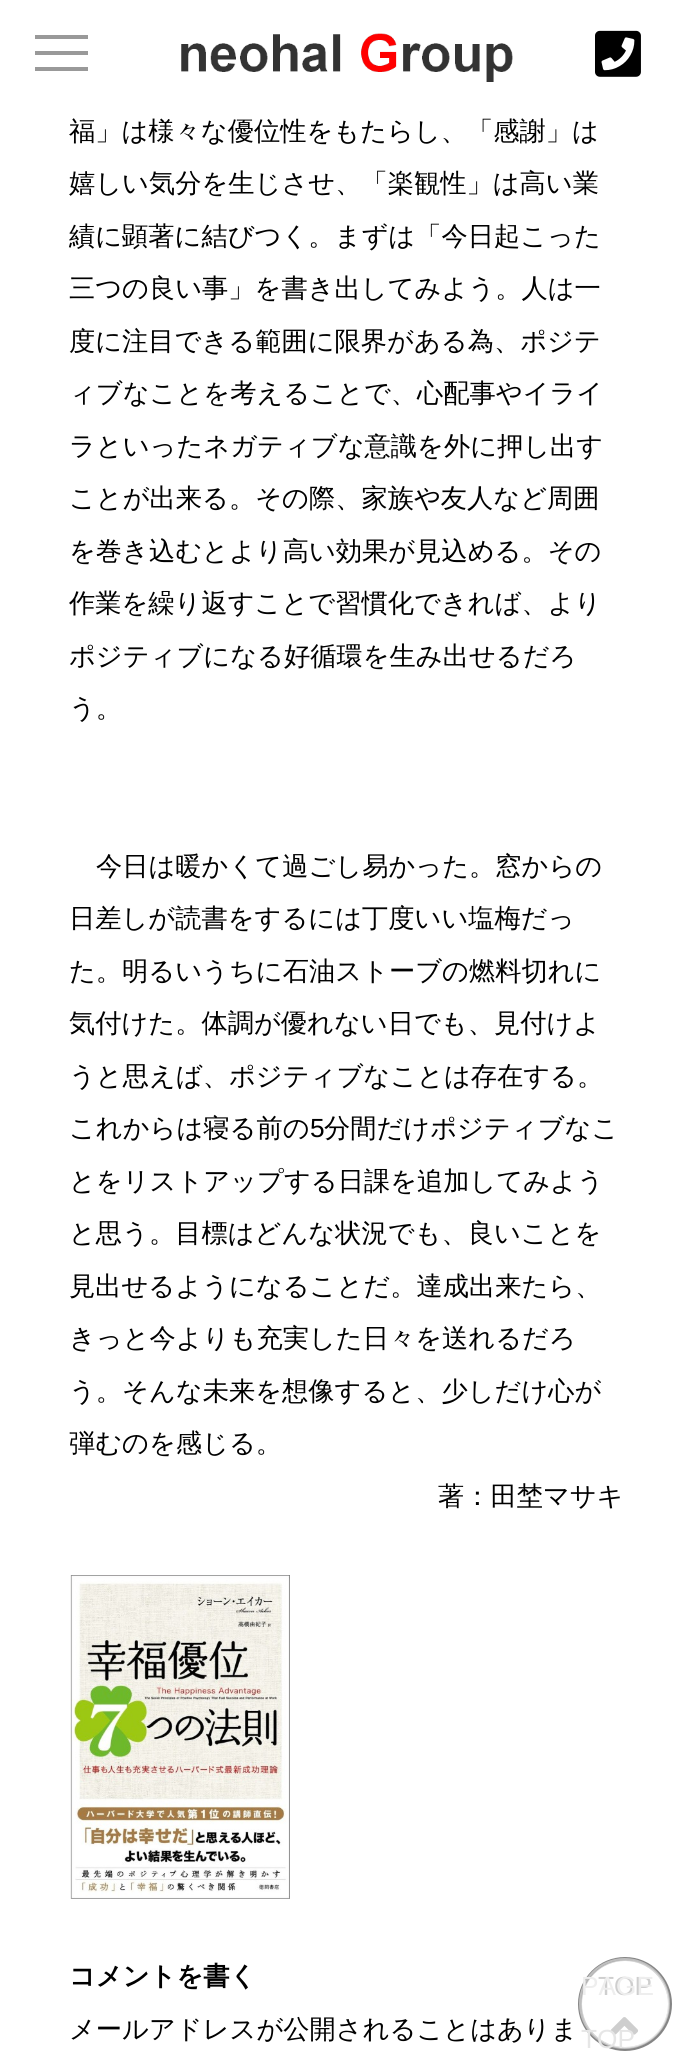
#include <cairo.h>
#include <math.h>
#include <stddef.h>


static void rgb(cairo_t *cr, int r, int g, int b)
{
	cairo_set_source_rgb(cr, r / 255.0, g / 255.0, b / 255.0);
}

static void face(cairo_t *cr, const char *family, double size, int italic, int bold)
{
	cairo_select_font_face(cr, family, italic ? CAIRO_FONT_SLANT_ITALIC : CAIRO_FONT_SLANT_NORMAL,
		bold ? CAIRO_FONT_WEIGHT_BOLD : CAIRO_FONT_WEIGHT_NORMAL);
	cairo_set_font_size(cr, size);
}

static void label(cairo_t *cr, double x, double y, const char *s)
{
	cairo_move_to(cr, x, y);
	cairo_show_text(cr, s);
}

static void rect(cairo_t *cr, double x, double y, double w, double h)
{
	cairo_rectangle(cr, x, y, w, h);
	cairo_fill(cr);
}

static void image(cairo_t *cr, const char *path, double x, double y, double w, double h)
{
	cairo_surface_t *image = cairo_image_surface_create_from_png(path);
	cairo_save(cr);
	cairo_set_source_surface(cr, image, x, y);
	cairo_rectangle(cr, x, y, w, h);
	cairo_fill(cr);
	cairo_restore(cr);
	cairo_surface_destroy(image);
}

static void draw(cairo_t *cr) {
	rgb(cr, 255, 255, 255);
	cairo_paint(cr);
	rgb(cr, 153, 153, 153);
	rect(cr, 35, 35, 53, 4);
	rect(cr, 35, 51, 53, 4);
	rect(cr, 35, 67, 53, 4);
	face(cr, "WenQuanYi Zen Hei Medium", 26.25, 0, 0);
	rgb(cr, 0, 0, 0);
	label(cr, 69, 140, "福」は様々な優位性をもたらし、「感謝」は");
	label(cr, 69, 192, "嬉しい気分を生じさせ、「楽観性」は高い業");
	label(cr, 69, 245, "績に顕著に結びつく。まずは「今日起こった");
	label(cr, 69, 297, "三つの良い事」を書き出してみよう。人は一");
	label(cr, 69, 350, "度に注目できる範囲に限界がある為、ポジテ");
	label(cr, 69, 402, "ィブなことを考えることで、心配事やイライ");
	label(cr, 69, 455, "ラといったネガティブな意識を外に押し出す");
	label(cr, 69, 507, "ことが出来る。その際、家族や友人など周囲");
	label(cr, 69, 560, "を巻き込むとより高い効果が見込める。その");
	label(cr, 69, 612, "作業を繰り返すことで習慣化できれば、より");
	label(cr, 69, 665, "ポジティブになる好循環を生み出せるだろ");
	label(cr, 69, 717, "う。");
	label(cr, 96, 875, "今日は暖かくて過ごし易かった。窓からの");
	label(cr, 69, 927, "日差しが読書をするには丁度いい塩梅だっ");
	label(cr, 69, 980, "た。明るいうちに石油ストーブの燃料切れに");
	label(cr, 69, 1032, "気付けた。体調が優れない日でも、見付けよ");
	label(cr, 69, 1085, "うと思えば、ポジティブなことは存在する。");
	label(cr, 69, 1137, "これからは寝る前の");
	face(cr, "Liberation Sans", 26.25, 0, 0);
	label(cr, 310, 1137, "5");
	face(cr, "WenQuanYi Zen Hei Medium", 26.25, 0, 0);
	label(cr, 324, 1137, "分間だけポジティブなこ");
	label(cr, 69, 1190, "とをリストアップする日課を追加してみよう");
	label(cr, 69, 1242, "と思う。目標はどんな状況でも、良いことを");
	label(cr, 69, 1295, "見出せるようになることだ。達成出来たら、");
	label(cr, 69, 1347, "きっと今よりも充実した日々を送れるだろ");
	label(cr, 69, 1400, "う。そんな未来を想像すると、少しだけ心が");
	label(cr, 69, 1452, "弾むのを感じる。");
	label(cr, 438, 1505, "著：田埜マサキ");
	image(cr, "image0.png", 70, 1575, 220, 324);
	face(cr, "WenQuanYi Zen Hei", 26.25, 0, 1);
	label(cr, 69, 1985, "コメントを書く");
	face(cr, "WenQuanYi Zen Hei Medium", 26.25, 0, 0);
	label(cr, 69, 2038, "メールアドレスが公開されることはありま");
	face(cr, "Liberation Sans", 26.25, 0, 0);
	rgb(cr, 133, 133, 133);
	label(cr, 598, 1995, "TOP");
	image(cr, "image3.png", 610, 2017, 29, 18);
	cairo_arc(cr, 625, 2004, 45, 0, 2 * M_PI);
	cairo_set_source_rgba(cr, 0, 0, 0, 0.48);
	cairo_set_line_width(cr, 4);
	cairo_stroke(cr);
	cairo_arc(cr, 624.5, 2003.5, 44.5, 0, 2 * M_PI);
	cairo_set_source_rgba(cr, 1, 1, 1, 0.48);
	cairo_set_line_width(cr, 2);
	cairo_stroke(cr);
	cairo_set_source_rgba(cr, 1, 1, 1, 0.6);
	cairo_arc(cr, 625, 2004, 44, 0, 2 * M_PI);
	cairo_fill(cr);
	rgb(cr, 238, 238, 238);
	label(cr, 581, 1995, "PAGE");
	rgb(cr, 230, 230, 230);
	label(cr, 581, 2048, "TOP");
	image(cr, "image1.png", 181, 33, 332, 49);
	image(cr, "image2.png", 595, 30, 46, 47);
}

int main(void) {
	cairo_surface_t *surface = cairo_image_surface_create(CAIRO_FORMAT_RGB24, 692, 2072);
	cairo_t *cr = cairo_create(surface);
	cairo_font_options_t *options = cairo_font_options_create();
	cairo_font_options_set_hint_metrics(options, CAIRO_HINT_METRICS_OFF);
	cairo_font_options_set_hint_style(options, CAIRO_HINT_STYLE_NONE);
	cairo_set_font_options(cr, options);
	cairo_set_miter_limit(cr, 4);
	draw(cr);
	cairo_surface_write_to_png(surface, "render.png");
	cairo_font_options_destroy(options);
	cairo_destroy(cr);
	cairo_surface_destroy(surface);
	return 0;
}
